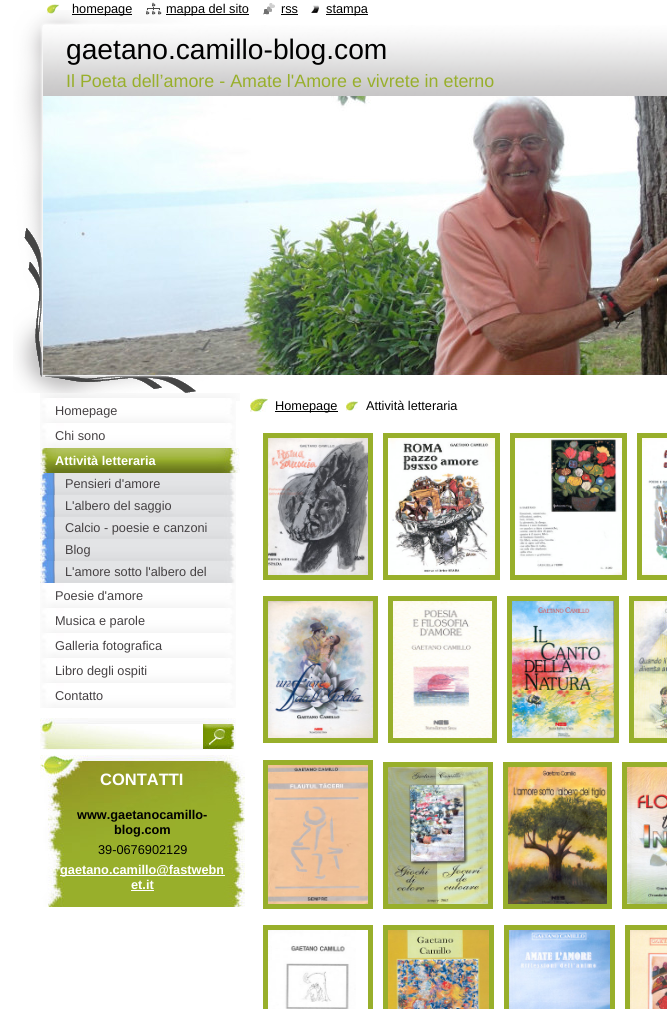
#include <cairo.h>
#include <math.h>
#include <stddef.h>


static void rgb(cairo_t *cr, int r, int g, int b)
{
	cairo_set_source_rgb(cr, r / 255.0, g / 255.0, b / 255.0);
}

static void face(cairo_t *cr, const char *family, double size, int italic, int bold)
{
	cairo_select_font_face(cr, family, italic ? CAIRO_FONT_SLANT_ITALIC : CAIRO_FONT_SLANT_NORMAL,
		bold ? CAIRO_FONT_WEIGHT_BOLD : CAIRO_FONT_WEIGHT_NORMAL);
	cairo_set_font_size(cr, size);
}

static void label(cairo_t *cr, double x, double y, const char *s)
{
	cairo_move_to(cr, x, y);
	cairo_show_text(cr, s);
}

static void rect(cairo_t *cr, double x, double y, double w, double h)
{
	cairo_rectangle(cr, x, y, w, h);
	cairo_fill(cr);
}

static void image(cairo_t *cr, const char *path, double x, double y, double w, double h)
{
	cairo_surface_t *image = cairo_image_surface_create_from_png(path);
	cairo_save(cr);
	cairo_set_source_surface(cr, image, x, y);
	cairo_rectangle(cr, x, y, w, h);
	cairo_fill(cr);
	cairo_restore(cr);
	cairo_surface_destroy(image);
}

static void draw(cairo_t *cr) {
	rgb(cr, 255, 255, 255);
	cairo_paint(cr);
	image(cr, "image4.png", 13, 10, 654, 383);
	image(cr, "image0.png", 47, 4, 12, 10);
	rgb(cr, 0, 0, 0);
	rect(cr, 72, 14, 60, 1);
	face(cr, "Liberation Sans", 12.75, 0, 0);
	label(cr, 72, 13, "homepage");
	image(cr, "image1.png", 146, 2, 16, 13);
	rect(cr, 166, 14, 83, 1);
	label(cr, 166, 13, "mappa del sito");
	image(cr, "image2.png", 263, 3, 12, 12);
	label(cr, 281, 13, "rss");
	rect(cr, 281, 14, 17, 1);
	image(cr, "image3.png", 311, 5, 8, 8);
	rect(cr, 326, 14, 42, 1);
	label(cr, 326, 13, "stampa");
	face(cr, "Liberation Sans", 28.2, 0, 0);
	label(cr, 66, 59, "gaetano.camillo-blog.com");
	face(cr, "Liberation Sans", 17.9, 0, 0);
	rgb(cr, 152, 175, 43);
	label(cr, 66, 87, "Il Poeta dell’amore - Amate l'Amore e vivrete in eterno");
	image(cr, "image5.png", 43, 96, 624, 279);
	image(cr, "image6.png", 40, 393, 200, 8);
	image(cr, "image7.png", 40, 398, 196, 25);
	face(cr, "Liberation Sans", 12.75, 0, 0);
	rgb(cr, 69, 65, 67);
	label(cr, 55, 415, "Homepage");
	image(cr, "image7.png", 40, 423, 196, 25);
	label(cr, 55, 440, "Chi sono");
	image(cr, "image8.png", 40, 448, 200, 25);
	face(cr, "Liberation Sans", 12.75, 0, 1);
	rgb(cr, 255, 255, 255);
	label(cr, 55, 465, "Attività letteraria");
	image(cr, "image9.png", 40, 473, 196, 22);
	face(cr, "Liberation Sans", 12.75, 0, 0);
	rgb(cr, 69, 65, 67);
	label(cr, 65, 488, "Pensieri d'amore");
	image(cr, "image9.png", 40, 495, 196, 22);
	label(cr, 65, 510, "L'albero del saggio");
	image(cr, "image9.png", 40, 517, 196, 22);
	label(cr, 65, 532, "Calcio - poesie e canzoni");
	image(cr, "image9.png", 40, 539, 196, 22);
	label(cr, 65, 554, "Blog");
	image(cr, "image9.png", 40, 561, 196, 22);
	label(cr, 65, 576, "L'amore sotto l'albero del");
	image(cr, "image7.png", 40, 583, 196, 25);
	label(cr, 55, 600, "Poesie d'amore");
	image(cr, "image7.png", 40, 608, 196, 25);
	label(cr, 55, 625, "Musica e parole");
	image(cr, "image7.png", 40, 633, 196, 25);
	label(cr, 55, 650, "Galleria fotografica");
	image(cr, "image7.png", 40, 658, 196, 25);
	label(cr, 55, 675, "Libro degli ospiti");
	image(cr, "image7.png", 40, 683, 196, 25);
	label(cr, 55, 700, "Contatto");
	image(cr, "image10.png", 40, 718, 163, 32);
	image(cr, "image11.png", 203, 718, 33, 32);
	image(cr, "image12.png", 40, 755, 205, 152);
	face(cr, "Liberation Sans", 16.5, 0, 1);
	rgb(cr, 255, 255, 255);
	label(cr, 100, 785, "CONTATTI");
	face(cr, "Liberation Sans", 12.75, 0, 1);
	rgb(cr, 0, 0, 0);
	label(cr, 77, 819, "www.gaetanocamillo-");
	label(cr, 114, 834, "blog.com");
	face(cr, "Liberation Sans", 12.75, 0, 0);
	label(cr, 98, 854, "39-0676902129");
	rgb(cr, 255, 255, 255);
	rect(cr, 60, 875, 165, 1);
	face(cr, "Liberation Sans", 12.75, 0, 1);
	label(cr, 60, 874, "gaetano.camillo@fastwebn");
	label(cr, 131, 889, "et.it");
	rect(cr, 131, 890, 23, 1);
	image(cr, "image13.png", 250, 398, 18, 14);
	rgb(cr, 0, 0, 0);
	rect(cr, 275, 411, 63, 1);
	face(cr, "Liberation Sans", 12.75, 0, 0);
	label(cr, 275, 410, "Homepage");
	image(cr, "image14.png", 346, 401, 12, 10);
	label(cr, 366, 410, "Attività letteraria");
	cairo_rectangle(cr, 265.5, 435.5, 105, 142);
	rgb(cr, 152, 175, 43);
	cairo_set_line_width(cr, 5);
	cairo_stroke(cr);
	cairo_rectangle(cr, 385.5, 435.5, 112, 142);
	cairo_stroke(cr);
	cairo_rectangle(cr, 512.5, 435.5, 112, 142);
	cairo_stroke(cr);
	cairo_rectangle(cr, 639.5, 435.5, 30, 142);
	cairo_stroke(cr);
	image(cr, "image15.png", 268, 438, 100, 137);
	image(cr, "image16.png", 388, 438, 107, 137);
	image(cr, "image17.png", 515, 438, 107, 137);
	image(cr, "image18.png", 642, 438, 25, 137);
	cairo_rectangle(cr, 265.5, 598.5, 110, 142);
	cairo_stroke(cr);
	cairo_rectangle(cr, 390.5, 598.5, 104, 142);
	cairo_stroke(cr);
	cairo_rectangle(cr, 509.5, 598.5, 107, 142);
	cairo_stroke(cr);
	cairo_rectangle(cr, 631.5, 598.5, 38, 142);
	cairo_stroke(cr);
	image(cr, "image19.png", 268, 601, 105, 137);
	image(cr, "image20.png", 393, 601, 99, 137);
	image(cr, "image21.png", 512, 601, 102, 137);
	image(cr, "image22.png", 634, 601, 33, 137);
	cairo_rectangle(cr, 265.5, 762.5, 105, 144);
	cairo_stroke(cr);
	cairo_rectangle(cr, 385.5, 764.5, 105, 142);
	cairo_stroke(cr);
	cairo_rectangle(cr, 505.5, 764.5, 104, 142);
	cairo_stroke(cr);
	cairo_rectangle(cr, 624.5, 764.5, 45, 142);
	cairo_stroke(cr);
	image(cr, "image23.png", 268, 765, 100, 139);
	image(cr, "image24.png", 388, 767, 100, 137);
	image(cr, "image25.png", 508, 767, 99, 137);
	image(cr, "image26.png", 627, 767, 40, 137);
	cairo_rectangle(cr, 265.5, 927.5, 105, 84);
	cairo_stroke(cr);
	cairo_rectangle(cr, 385.5, 927.5, 106, 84);
	cairo_stroke(cr);
	cairo_rectangle(cr, 506.5, 927.5, 106, 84);
	cairo_stroke(cr);
	cairo_rectangle(cr, 627.5, 927.5, 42, 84);
	cairo_stroke(cr);
	image(cr, "image27.png", 268, 930, 88, 79);
	image(cr, "image28.png", 388, 930, 101, 79);
	image(cr, "image29.png", 509, 930, 101, 79);
	image(cr, "image30.png", 630, 930, 37, 79);
}

int main(void) {
	cairo_surface_t *surface = cairo_image_surface_create(CAIRO_FORMAT_RGB24, 667, 1009);
	cairo_t *cr = cairo_create(surface);
	cairo_font_options_t *options = cairo_font_options_create();
	cairo_font_options_set_hint_metrics(options, CAIRO_HINT_METRICS_OFF);
	cairo_font_options_set_hint_style(options, CAIRO_HINT_STYLE_NONE);
	cairo_set_font_options(cr, options);
	cairo_set_miter_limit(cr, 4);
	draw(cr);
	cairo_surface_write_to_png(surface, "render.png");
	cairo_font_options_destroy(options);
	cairo_destroy(cr);
	cairo_surface_destroy(surface);
	return 0;
}
